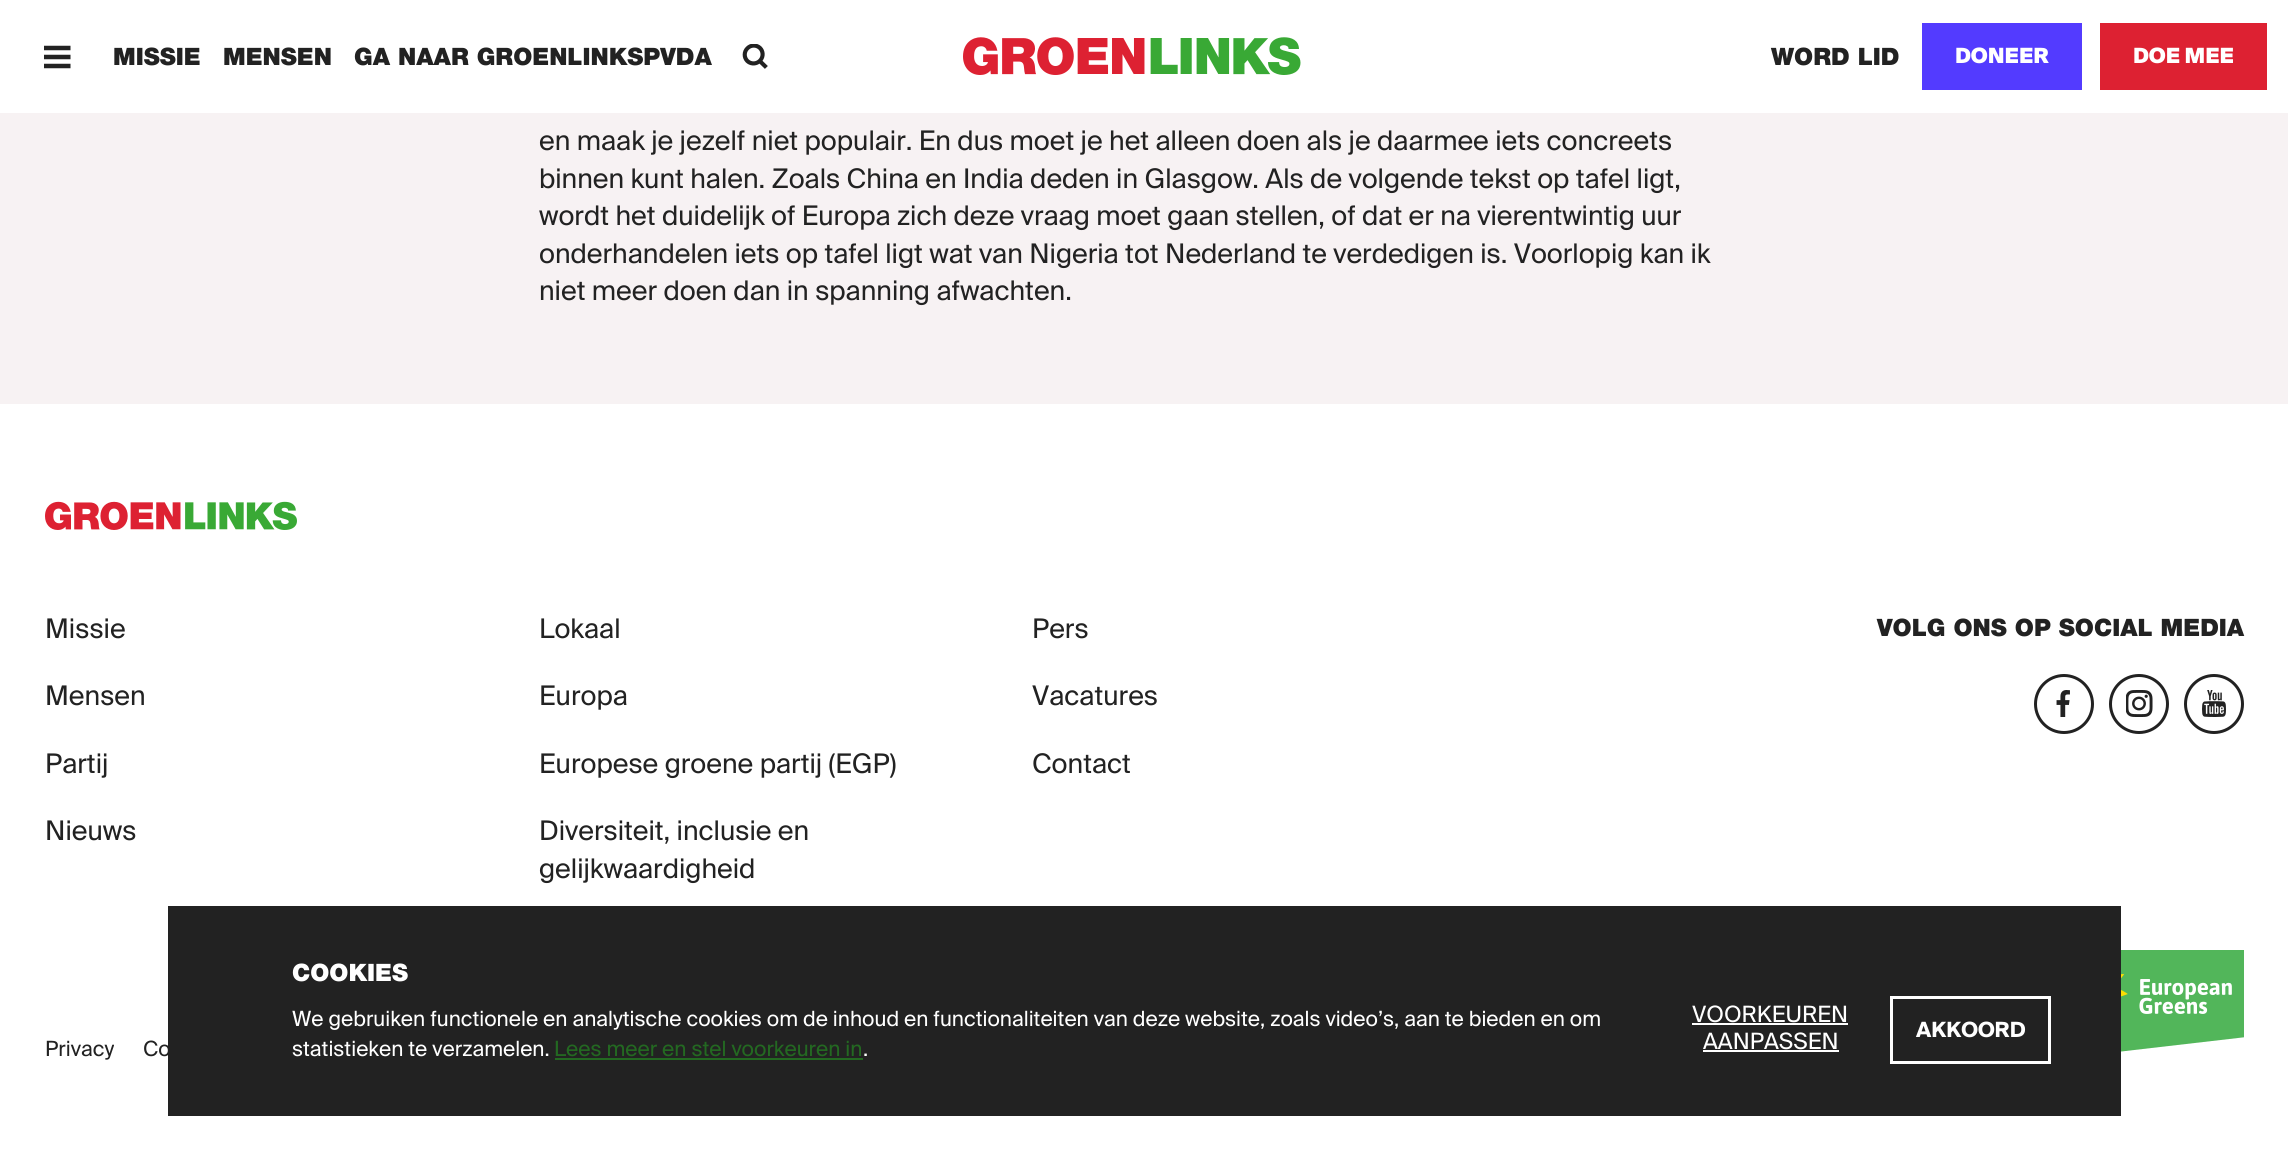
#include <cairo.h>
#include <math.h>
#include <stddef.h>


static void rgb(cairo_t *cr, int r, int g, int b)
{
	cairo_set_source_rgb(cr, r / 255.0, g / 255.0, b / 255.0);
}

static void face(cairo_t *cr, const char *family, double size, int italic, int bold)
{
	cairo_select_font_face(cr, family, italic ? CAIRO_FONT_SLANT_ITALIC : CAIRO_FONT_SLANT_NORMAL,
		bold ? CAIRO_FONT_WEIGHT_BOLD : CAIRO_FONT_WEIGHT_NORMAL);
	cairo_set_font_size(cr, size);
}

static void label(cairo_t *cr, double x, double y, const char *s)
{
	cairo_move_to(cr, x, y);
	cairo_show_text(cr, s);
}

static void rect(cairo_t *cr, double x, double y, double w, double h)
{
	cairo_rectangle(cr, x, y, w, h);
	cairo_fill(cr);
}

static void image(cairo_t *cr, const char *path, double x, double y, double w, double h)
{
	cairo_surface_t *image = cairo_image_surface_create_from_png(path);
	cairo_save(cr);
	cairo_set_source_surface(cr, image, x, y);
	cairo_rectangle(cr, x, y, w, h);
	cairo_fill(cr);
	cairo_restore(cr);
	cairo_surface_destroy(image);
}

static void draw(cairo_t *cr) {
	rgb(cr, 247, 242, 243);
	cairo_paint(cr);
	rgb(cr, 255, 255, 255);
	rect(cr, 0, 0, 2288, 113);
	image(cr, "image0.png", 44, 45, 27, 24);
	face(cr, "Helvetica Neue Black", 24, 0, 0);
	rgb(cr, 34, 34, 34);
	label(cr, 113, 65, "MISSIE");
	label(cr, 223, 65, "MENSEN");
	label(cr, 354, 65, "GA NAAR GROENLINKSPVDA");
	image(cr, "image1.png", 742, 44, 26, 25);
	image(cr, "image2.png", 963, 37, 338, 38);
	label(cr, 1771, 65, "WORD LID");
	rgb(cr, 83, 59, 255);
	rect(cr, 1922, 23, 160, 67);
	face(cr, "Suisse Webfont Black", 21, 0, 0);
	rgb(cr, 255, 255, 255);
	label(cr, 1955, 63, "DONEER");
	rgb(cr, 221, 33, 50);
	rect(cr, 2100, 23, 167, 67);
	rgb(cr, 255, 255, 255);
	label(cr, 2133, 63, "DOE MEE");
	face(cr, "Suisse Webfont", 27, 0, 0);
	rgb(cr, 34, 34, 34);
	label(cr, 539, 150, "en maak je jezelf niet populair. En dus moet je het alleen doen als je daarmee iets concreets");
	label(cr, 539, 188, "binnen kunt halen. Zoals China en India deden in Glasgow. Als de volgende tekst op tafel ligt,");
	label(cr, 539, 225, "wordt het duidelijk of Europa zich deze vraag moet gaan stellen, of dat er na vierentwintig uur");
	label(cr, 539, 263, "onderhandelen iets op tafel ligt wat van Nigeria tot Nederland te verdedigen is. Voorlopig kan ik");
	label(cr, 539, 300, "niet meer doen dan in spanning afwachten.");
	rgb(cr, 255, 255, 255);
	rect(cr, 0, 404, 2288, 756);
	image(cr, "image3.png", 45, 501, 252, 29);
	rgb(cr, 34, 34, 34);
	label(cr, 45, 638, "Missie");
	label(cr, 45, 705, "Mensen");
	label(cr, 45, 773, "Partij");
	label(cr, 45, 840, "Nieuws");
	label(cr, 539, 638, "Lokaal");
	label(cr, 539, 705, "Europa");
	label(cr, 539, 773, "Europese groene partij (EGP)");
	label(cr, 539, 840, "Diversiteit, inclusie en");
	label(cr, 539, 878, "gelijkwaardigheid");
	label(cr, 1032, 638, "Pers");
	label(cr, 1032, 705, "Vacatures");
	label(cr, 1032, 773, "Contact");
	face(cr, "Helvetica Neue Black", 24, 0, 0);
	label(cr, 1877, 636, "VOLG ONS OP SOCIAL MEDIA");
	cairo_new_path(cr);
	cairo_arc(cr, 2064, 704, 28.5, 0, 2 * M_PI);
	cairo_set_line_width(cr, 3);
	cairo_stroke(cr);
	image(cr, "image4.png", 2056, 690, 14, 27);
	cairo_arc(cr, 2139, 704, 28.5, 0, 2 * M_PI);
	cairo_stroke(cr);
	image(cr, "image5.png", 2126, 690, 27, 27);
	cairo_arc(cr, 2214, 704, 28.5, 0, 2 * M_PI);
	cairo_stroke(cr);
	image(cr, "image6.png", 2202, 690, 24, 27);
	face(cr, "Suisse Webfont", 21, 0, 0);
	label(cr, 45, 1056, "Privacy");
	label(cr, 143, 1056, "Co");
	image(cr, "image7.png", 2121, 950, 123, 102);
	rect(cr, 168, 906, 1953, 210);
	face(cr, "Helvetica Neue Black", 24, 0, 0);
	rgb(cr, 255, 255, 255);
	label(cr, 292, 981, "COOKIES");
	face(cr, "Suisse Webfont", 21, 0, 0);
	label(cr, 292, 1026, "We gebruiken functionele en analytische cookies om de inhoud en functionaliteiten van deze website, zoals video’s, aan te bieden en om");
	label(cr, 292, 1056, "statistieken te verzamelen.");
	rgb(cr, 35, 105, 33);
	label(cr, 554, 1056, "Lees meer en stel voorkeuren in");
	rect(cr, 555, 1058, 308, 2);
	rgb(cr, 255, 255, 255);
	label(cr, 863, 1056, ".");
	face(cr, "Suisse Webfont", 22.5, 0, 0);
	label(cr, 1692, 1022, "VOORKEUREN");
	rect(cr, 1692, 1023, 156, 2);
	label(cr, 1703, 1049, "AANPASSEN");
	rect(cr, 1703, 1050, 136, 2);
	cairo_rectangle(cr, 1891.5, 997.5, 158, 65);
	cairo_stroke(cr);
	face(cr, "Suisse Webfont", 21, 0, 1);
	label(cr, 1916, 1037, "AKKOORD");
}

int main(void) {
	cairo_surface_t *surface = cairo_image_surface_create(CAIRO_FORMAT_RGB24, 2288, 1160);
	cairo_t *cr = cairo_create(surface);
	cairo_font_options_t *options = cairo_font_options_create();
	cairo_font_options_set_hint_metrics(options, CAIRO_HINT_METRICS_OFF);
	cairo_font_options_set_hint_style(options, CAIRO_HINT_STYLE_NONE);
	cairo_set_font_options(cr, options);
	cairo_set_miter_limit(cr, 4);
	draw(cr);
	cairo_surface_write_to_png(surface, "render.png");
	cairo_font_options_destroy(options);
	cairo_destroy(cr);
	cairo_surface_destroy(surface);
	return 0;
}
